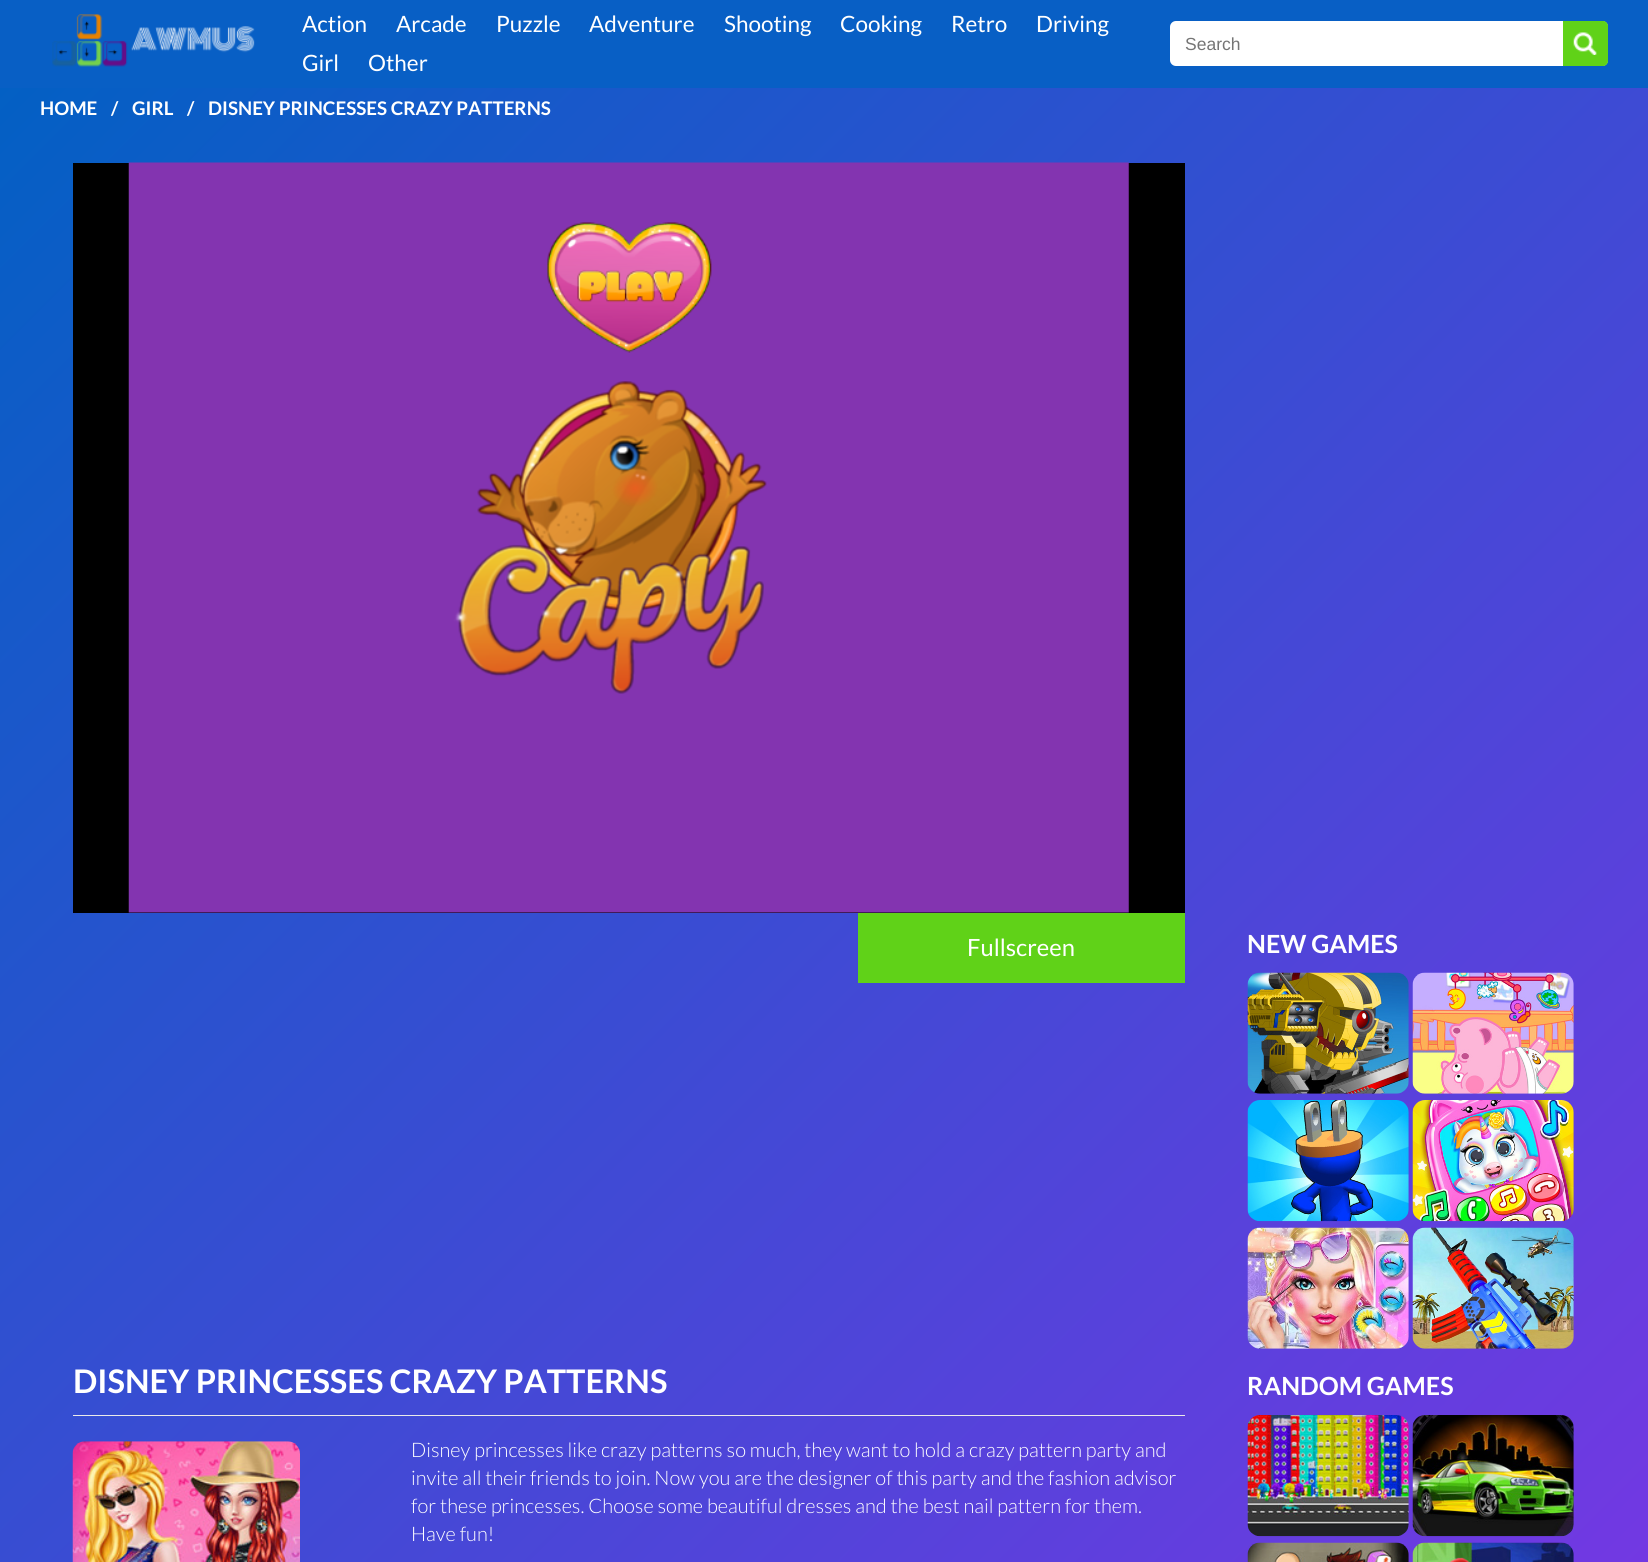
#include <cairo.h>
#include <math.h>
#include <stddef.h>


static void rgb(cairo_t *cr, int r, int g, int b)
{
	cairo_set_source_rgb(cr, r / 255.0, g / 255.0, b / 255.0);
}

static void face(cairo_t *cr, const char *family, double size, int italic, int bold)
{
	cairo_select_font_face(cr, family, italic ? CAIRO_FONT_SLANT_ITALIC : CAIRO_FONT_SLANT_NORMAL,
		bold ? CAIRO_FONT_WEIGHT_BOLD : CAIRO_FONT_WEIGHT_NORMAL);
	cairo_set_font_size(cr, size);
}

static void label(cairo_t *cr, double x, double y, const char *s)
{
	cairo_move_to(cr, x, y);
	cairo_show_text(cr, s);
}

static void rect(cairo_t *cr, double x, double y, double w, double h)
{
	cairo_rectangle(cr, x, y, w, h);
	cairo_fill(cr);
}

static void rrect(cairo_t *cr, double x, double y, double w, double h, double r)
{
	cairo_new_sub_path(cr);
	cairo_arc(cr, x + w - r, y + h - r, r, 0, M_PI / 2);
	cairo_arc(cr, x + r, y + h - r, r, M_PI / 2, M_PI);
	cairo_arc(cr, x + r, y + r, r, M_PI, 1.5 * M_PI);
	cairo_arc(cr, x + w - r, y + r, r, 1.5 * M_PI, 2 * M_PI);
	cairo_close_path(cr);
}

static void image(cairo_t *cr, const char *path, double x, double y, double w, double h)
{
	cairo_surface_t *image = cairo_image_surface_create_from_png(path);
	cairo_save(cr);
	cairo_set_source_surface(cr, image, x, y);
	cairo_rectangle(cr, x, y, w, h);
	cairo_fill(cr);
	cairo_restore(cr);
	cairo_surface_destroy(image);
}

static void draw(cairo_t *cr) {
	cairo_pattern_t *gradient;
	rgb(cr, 255, 255, 255);
	cairo_paint(cr);
	gradient = cairo_pattern_create_linear(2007, 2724, -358, 358);
	cairo_pattern_add_color_stop_rgba(gradient, 0.2, 0.529, 0.192, 0.91, 1);
	cairo_pattern_add_color_stop_rgba(gradient, 1, 0, 0.38, 0.765, 1);
	cairo_set_source(cr, gradient);
	cairo_pattern_destroy(gradient);
	rect(cr, 0, 88, 1648, 1474);
	rgb(cr, 8, 95, 197);
	rect(cr, 0, 0, 1648, 88);
	image(cr, "image0.png", 52, 14, 203, 53);
	face(cr, "Lato", 22.5, 0, 0);
	rgb(cr, 255, 255, 255);
	label(cr, 302, 32, "Action");
	label(cr, 396, 32, "Arcade");
	label(cr, 496, 32, "Puzzle");
	label(cr, 589, 32, "Adventure");
	label(cr, 724, 32, "Shooting");
	label(cr, 840, 32, "Cooking");
	label(cr, 951, 32, "Retro");
	label(cr, 1036, 32, "Driving");
	label(cr, 302, 71, "Girl");
	label(cr, 368, 71, "Other");
	rrect(cr, 1170, 21, 438, 45, 6);
	cairo_fill(cr);
	face(cr, "Liberation Sans", 17.5, 0, 0);
	rgb(cr, 117, 117, 117);
	label(cr, 1185, 50, "Search");
	rgb(cr, 96, 210, 24);
	cairo_new_path(cr);
	cairo_move_to(cr, 1563.5, 21.5);
	cairo_line_to(cr, 1603, 21.5);
	cairo_curve_to(cr, 1605.5, 21.5, 1607.5, 23.5, 1607.5, 26);
	cairo_line_to(cr, 1607.5, 61);
	cairo_curve_to(cr, 1607.5, 63.5, 1605.5, 65.5, 1603, 65.5);
	cairo_line_to(cr, 1563.5, 65.5);
	cairo_close_path(cr);
	cairo_fill_preserve(cr);
	cairo_set_line_width(cr, 1);
	cairo_stroke(cr);
	image(cr, "image1.png", 1573, 32, 24, 23);
	face(cr, "Lato", 18.75, 0, 1);
	rgb(cr, 255, 255, 255);
	label(cr, 40, 115, "HOME");
	label(cr, 111, 115, "/");
	label(cr, 132, 115, "GIRL");
	label(cr, 187, 115, "/");
	label(cr, 208, 115, "DISNEY PRINCESSES CRAZY PATTERNS");
	rgb(cr, 0, 0, 0);
	rect(cr, 73, 163, 1112, 750);
	image(cr, "image2.png", 128, 162, 1001, 751);
	rgb(cr, 96, 210, 24);
	rect(cr, 858, 913, 327, 70);
	face(cr, "Lato", 23.75, 0, 0);
	rgb(cr, 255, 255, 255);
	label(cr, 967, 956, "Fullscreen");
	face(cr, "Lato", 32.5, 0, 1);
	label(cr, 73, 1393, "DISNEY PRINCESSES CRAZY PATTERNS");
	rgb(cr, 234, 234, 234);
	rect(cr, 73, 1415, 1112, 1);
	image(cr, "image3.png", 72, 1441, 228, 121);
	face(cr, "Lato Light", 20, 0, 0);
	rgb(cr, 255, 255, 255);
	label(cr, 411, 1457, "Disney princesses like crazy patterns so much, they want to hold a crazy pattern party and");
	label(cr, 411, 1485, "invite all their friends to join. Now you are the designer of this party and the fashion advisor");
	label(cr, 411, 1513, "for these princesses. Choose some beautiful dresses and the best nail pattern for them.");
	label(cr, 411, 1541, "Have fun!");
	face(cr, "Lato", 25, 0, 1);
	label(cr, 1247, 953, "NEW GAMES");
	image(cr, "image4.png", 1247, 972, 162, 122);
	image(cr, "image5.png", 1412, 972, 162, 122);
	image(cr, "image6.png", 1247, 1100, 162, 122);
	image(cr, "image7.png", 1412, 1100, 162, 122);
	image(cr, "image8.png", 1247, 1227, 162, 122);
	image(cr, "image9.png", 1412, 1227, 162, 122);
	label(cr, 1247, 1395, "RANDOM GAMES");
	image(cr, "image10.png", 1247, 1415, 162, 122);
	image(cr, "image11.png", 1412, 1415, 162, 122);
	image(cr, "image12.png", 1247, 1542, 162, 20);
	image(cr, "image13.png", 1412, 1542, 162, 20);
}

int main(void) {
	cairo_surface_t *surface = cairo_image_surface_create(CAIRO_FORMAT_RGB24, 1648, 1562);
	cairo_t *cr = cairo_create(surface);
	cairo_font_options_t *options = cairo_font_options_create();
	cairo_font_options_set_hint_metrics(options, CAIRO_HINT_METRICS_OFF);
	cairo_font_options_set_hint_style(options, CAIRO_HINT_STYLE_NONE);
	cairo_set_font_options(cr, options);
	cairo_set_miter_limit(cr, 4);
	draw(cr);
	cairo_surface_write_to_png(surface, "render.png");
	cairo_font_options_destroy(options);
	cairo_destroy(cr);
	cairo_surface_destroy(surface);
	return 0;
}
